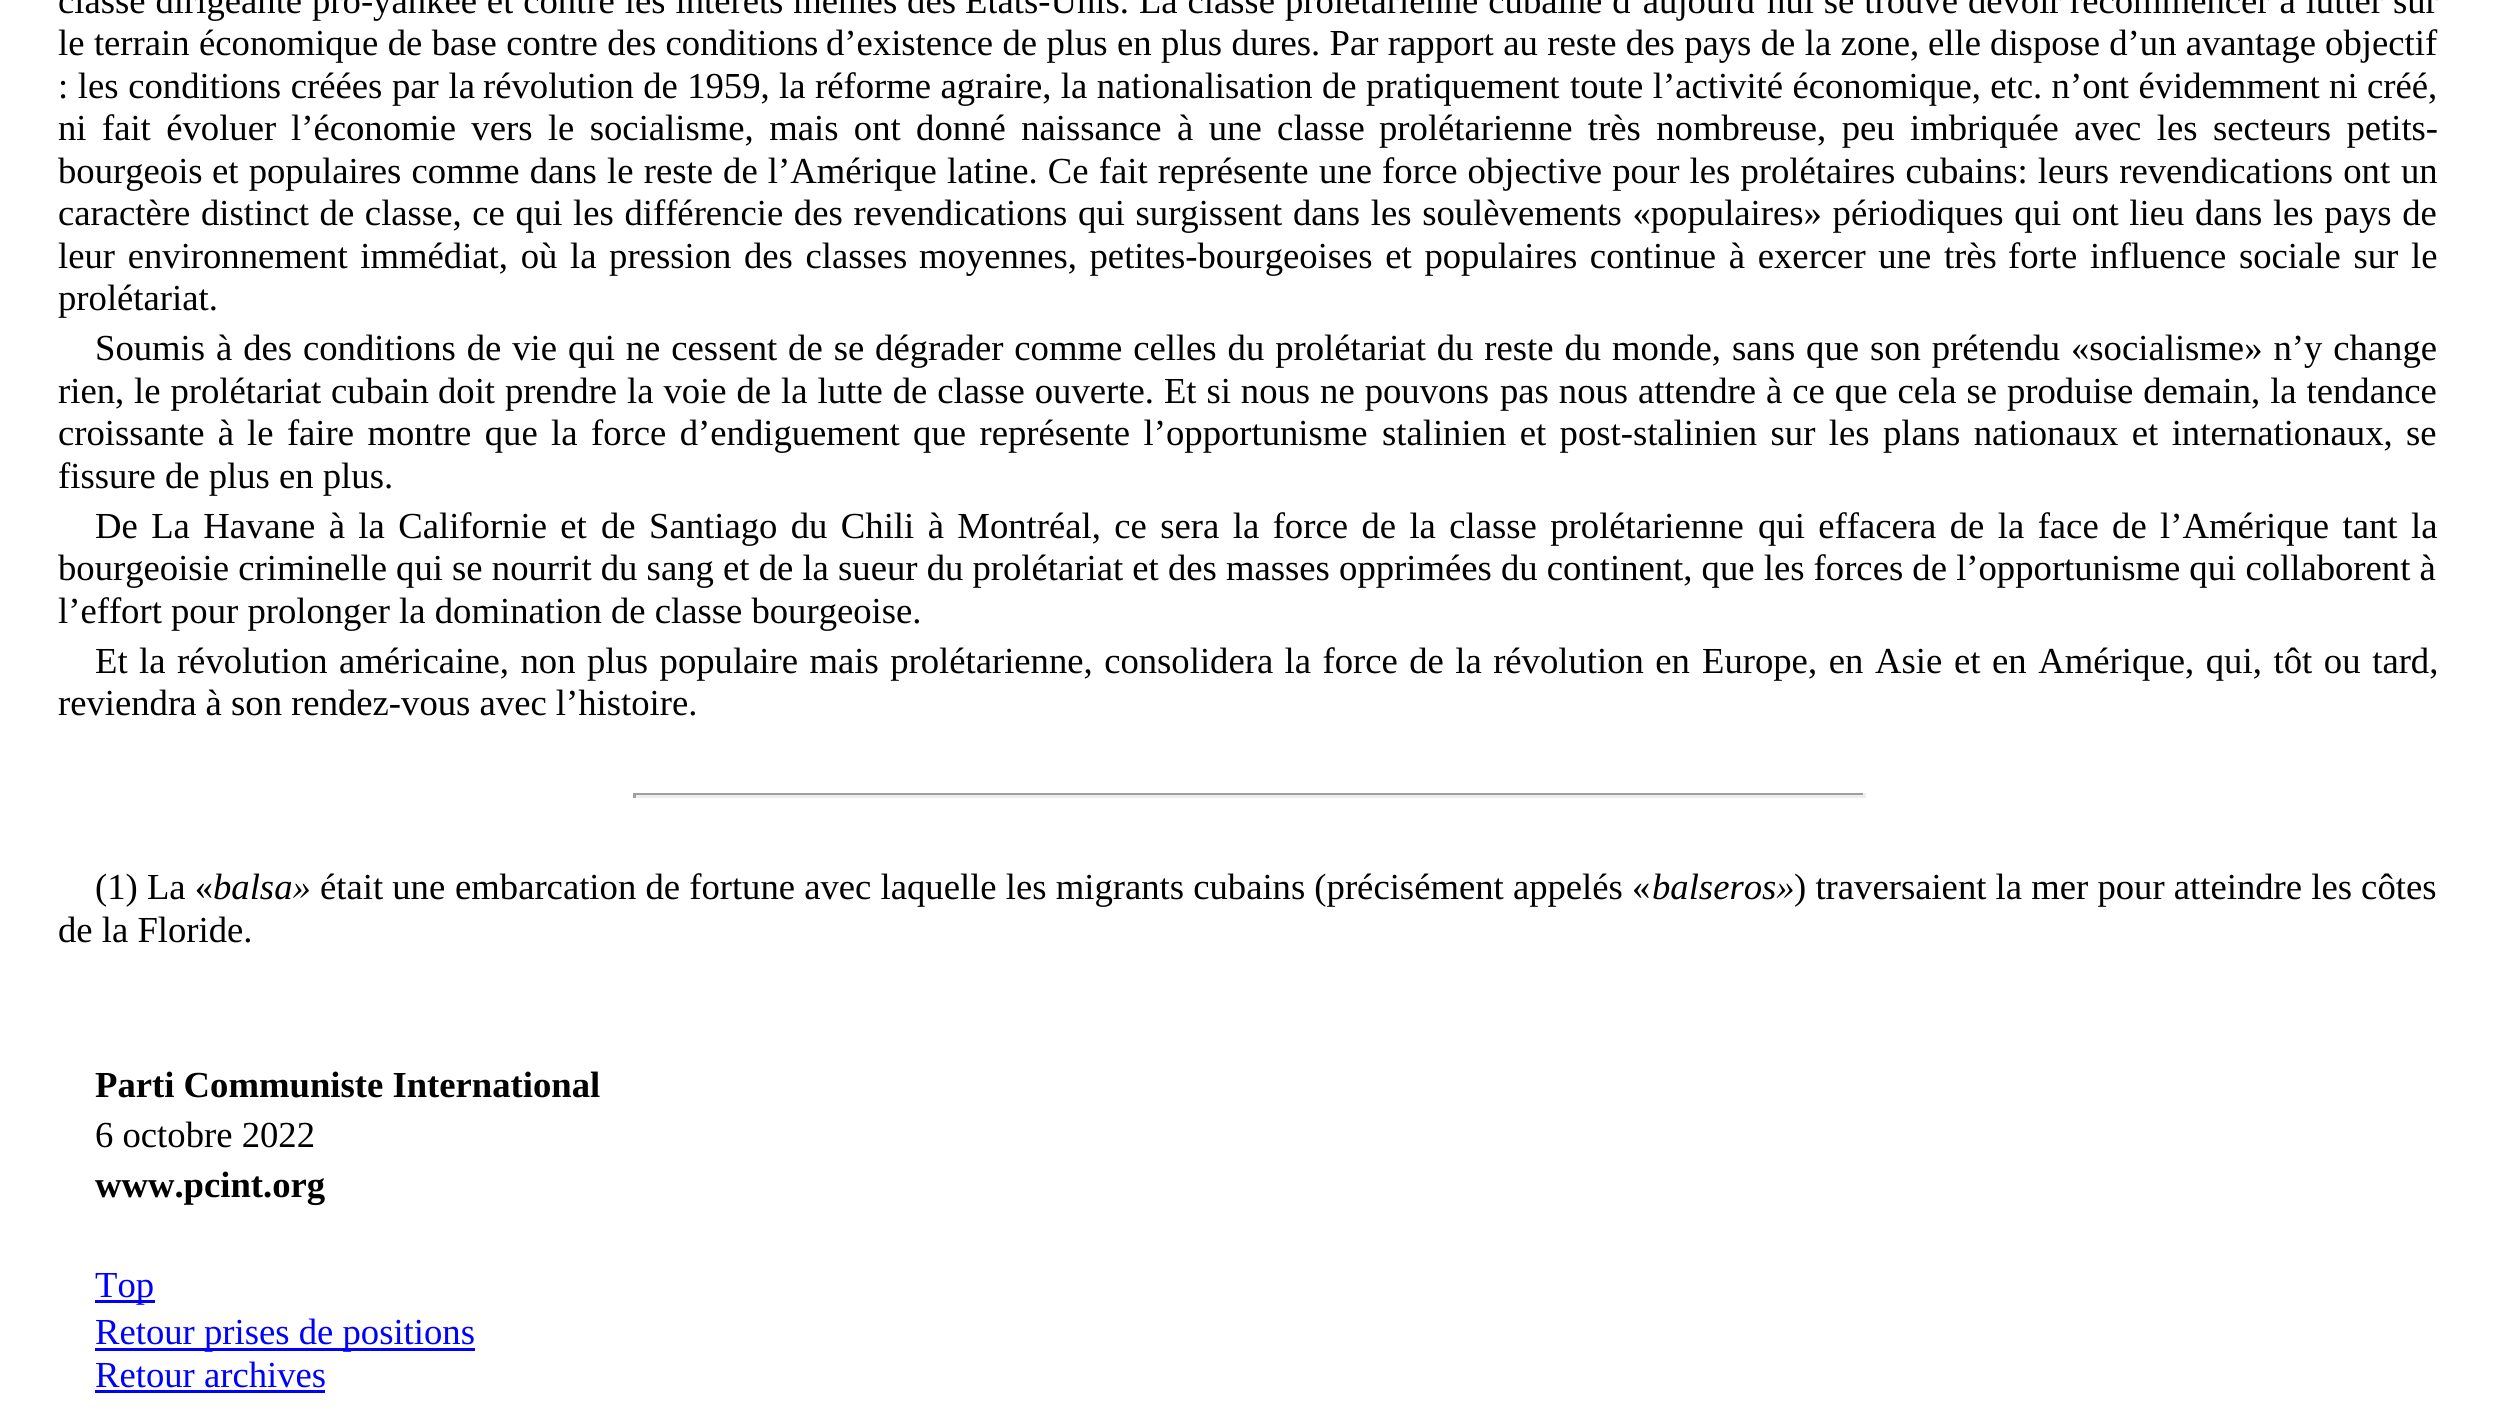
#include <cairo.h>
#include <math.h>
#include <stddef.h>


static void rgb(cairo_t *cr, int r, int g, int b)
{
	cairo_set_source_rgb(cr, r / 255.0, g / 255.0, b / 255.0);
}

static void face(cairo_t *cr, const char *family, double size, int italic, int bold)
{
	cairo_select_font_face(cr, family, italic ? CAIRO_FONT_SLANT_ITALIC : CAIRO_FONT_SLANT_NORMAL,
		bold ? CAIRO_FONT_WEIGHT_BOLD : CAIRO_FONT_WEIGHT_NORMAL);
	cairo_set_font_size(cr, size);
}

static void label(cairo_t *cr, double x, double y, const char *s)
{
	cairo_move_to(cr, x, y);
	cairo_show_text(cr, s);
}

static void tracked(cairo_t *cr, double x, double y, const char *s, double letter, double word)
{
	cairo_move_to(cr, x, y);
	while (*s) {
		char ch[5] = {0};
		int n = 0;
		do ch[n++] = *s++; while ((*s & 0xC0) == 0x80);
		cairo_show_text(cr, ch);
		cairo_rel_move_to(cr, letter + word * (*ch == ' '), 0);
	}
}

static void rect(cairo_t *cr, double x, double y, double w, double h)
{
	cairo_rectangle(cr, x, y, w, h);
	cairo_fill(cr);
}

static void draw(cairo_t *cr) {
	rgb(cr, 255, 255, 255);
	cairo_paint(cr);
	face(cr, "Liberation Serif", 36.67, 0, 0);
	rgb(cr, 0, 0, 0);
	tracked(cr, 58, 13, "classe dirigeante pro-yankee et contre les intérêts mêmes des", 0, 0.75);
	tracked(cr, 965, 13, "États-Unis. La classe prolétarienne cubaine d’aujourd’hui se trouve devoir", 0, 0.75);
	tracked(cr, 2070, 13, "recommencer à lutter sur", 0, 0.75);
	tracked(cr, 58, 55, "le terrain économique de base contre des conditions", 0, 0.25);
	tracked(cr, 826, 55, "d’existence de plus en plus dures. Par rapport au reste des pays de la zone,", 0, 0.25);
	label(cr, 1928, 55, "elle dispose d’un avantage objectif");
	tracked(cr, 58, 98, ": les conditions créées par la", 0, 0.5);
	tracked(cr, 483, 98, "révolution de 1959, la réforme agraire, la nationalisation de pratiquement", 0, 0.25);
	tracked(cr, 1570, 98, "toute l’activité économique, etc. n’ont évidemment ni créé,", 0, 0.25);
	tracked(cr, 58, 140, "ni fait évoluer", 0, 6.25);
	tracked(cr, 291, 140, "l’économie vers le socialisme, mais ont donné naissance à une classe", 0, 6.25);
	tracked(cr, 1379, 140, "prolétarienne très nombreuse, peu imbriquée avec les secteurs petits-", 0, 6.25);
	label(cr, 58, 183, "bourgeois");
	tracked(cr, 212, 183, "et populaires comme dans le reste de l’Amérique latine. Ce fait représente", 0, 1);
	tracked(cr, 1319, 183, "une force objective pour les prolétaires cubains: leurs revendications ont", 0, 1);
	label(cr, 2401, 183, "un");
	tracked(cr, 58, 225, "caractère distinct de classe, ce qui les différencie des revendications", 0, 1.5);
	tracked(cr, 1078, 225, "qui surgissent dans les soulèvements «populaires» périodiques qui ont lieu", 0, 1.5);
	tracked(cr, 2195, 225, "dans les pays de", 0, 1.5);
	tracked(cr, 58, 268, "leur environnement immédiat, où la pression des classes", 0, 3.5);
	tracked(cr, 919, 268, "moyennes, petites-bourgeoises et populaires continue à exercer une très", 0, 3.5);
	tracked(cr, 2008, 268, "forte influence sociale sur le", 0, 3.5);
	label(cr, 58, 310, "prolétariat.");
	tracked(cr, 95, 360, "Soumis à des conditions de vie", 0, 1.75);
	tracked(cr, 568, 360, "qui ne cessent de se dégrader comme celles du prolétariat du reste du monde,", 0, 1.75);
	tracked(cr, 1732, 360, "sans que son prétendu «socialisme» n’y change", 0, 1.75);
	tracked(cr, 58, 403, "rien, le prolétariat cubain", 0, 0.75);
	tracked(cr, 438, 403, "doit prendre la voie de la lutte de classe ouverte. Et si nous ne pouvons", 0, 0.8);
	tracked(cr, 1500, 403, "pas nous attendre à ce que cela se produise demain, la tendance", 0, 0.75);
	tracked(cr, 58, 445, "croissante à", 0, 4);
	tracked(cr, 247, 445, "le faire montre que la force d’endiguement que représente l’opportunisme", 0, 4.25);
	tracked(cr, 1382, 445, "stalinien et post-stalinien sur les plans nationaux et internationaux, se", 0, 4.25);
	label(cr, 58, 488, "fissure de plus en plus.");
	tracked(cr, 95, 538, "De La Havane à la Californie et", 0, 4.25);
	tracked(cr, 601, 538, "de Santiago du Chili à Montréal, ce sera la force de la classe prolétarienne", 0, 4.25);
	tracked(cr, 1758, 538, "qui effacera de la face de l’Amérique tant la", 0, 4.25);
	label(cr, 58, 580, "bourgeoisie criminelle qui se nourrit du sang et de la sueur du prolétariat et des masses opprimées du continent, que les forces de l’opportunisme qui collaborent à");
	label(cr, 58, 623, "l’effort pour prolonger la domination de classe bourgeoise.");
	tracked(cr, 95, 673, "Et la révolution américaine, non", 0, 2.25);
	tracked(cr, 587, 673, "plus populaire mais prolétarienne, consolidera la force de la révolution en", 0, 2.25);
	tracked(cr, 1702, 673, "Europe, en Asie et en Amérique, qui, tôt ou tard,", 0, 2.5);
	label(cr, 58, 715, "reviendra à son rendez-vous avec l’histoire.");
	rgb(cr, 159, 159, 159);
	rect(cr, 633, 793, 1232, 2);
	rgb(cr, 238, 238, 238);
	rect(cr, 1863, 793, 3, 5);
	rect(cr, 633, 795, 1232, 3);
	rgb(cr, 159, 159, 159);
	rect(cr, 633, 793, 3, 5);
	rgb(cr, 0, 0, 0);
	label(cr, 95, 899, "(1) La «");
	face(cr, "Liberation Serif", 36.67, 1, 0);
	label(cr, 213, 899, "balsa»");
	face(cr, "Liberation Serif", 36.67, 0, 0);
	label(cr, 320, 899, "était une");
	label(cr, 455, 899, "embarcation de fortune avec laquelle les migrants cubains (précisément appelés «");
	face(cr, "Liberation Serif", 36.67, 1, 0);
	label(cr, 1652, 899, "balseros»");
	face(cr, "Liberation Serif", 36.67, 0, 0);
	label(cr, 1794, 899, ") traversaient la mer pour atteindre les côtes");
	label(cr, 58, 942, "de la Floride.");
	face(cr, "Liberation Serif", 36.67, 0, 1);
	label(cr, 95, 1097, "Parti Communiste International");
	face(cr, "Liberation Serif", 36.67, 0, 0);
	label(cr, 95, 1147, "6 octobre 2022");
	face(cr, "Liberation Serif", 36.67, 0, 1);
	label(cr, 95, 1197, "www.pcint.org");
	rgb(cr, 0, 0, 255);
	rect(cr, 95, 1300, 60, 3);
	face(cr, "Liberation Serif", 36.67, 0, 0);
	label(cr, 95, 1297, "Top");
	rect(cr, 95, 1348, 380, 3);
	label(cr, 95, 1344, "Retour prises de positions");
	label(cr, 95, 1387, "Retour archives");
	rect(cr, 95, 1390, 230, 3);
}

int main(void) {
	cairo_surface_t *surface = cairo_image_surface_create(CAIRO_FORMAT_RGB24, 2493, 1416);
	cairo_t *cr = cairo_create(surface);
	cairo_font_options_t *options = cairo_font_options_create();
	cairo_font_options_set_hint_metrics(options, CAIRO_HINT_METRICS_OFF);
	cairo_font_options_set_hint_style(options, CAIRO_HINT_STYLE_NONE);
	cairo_set_font_options(cr, options);
	cairo_set_miter_limit(cr, 4);
	draw(cr);
	cairo_surface_write_to_png(surface, "render.png");
	cairo_font_options_destroy(options);
	cairo_destroy(cr);
	cairo_surface_destroy(surface);
	return 0;
}
